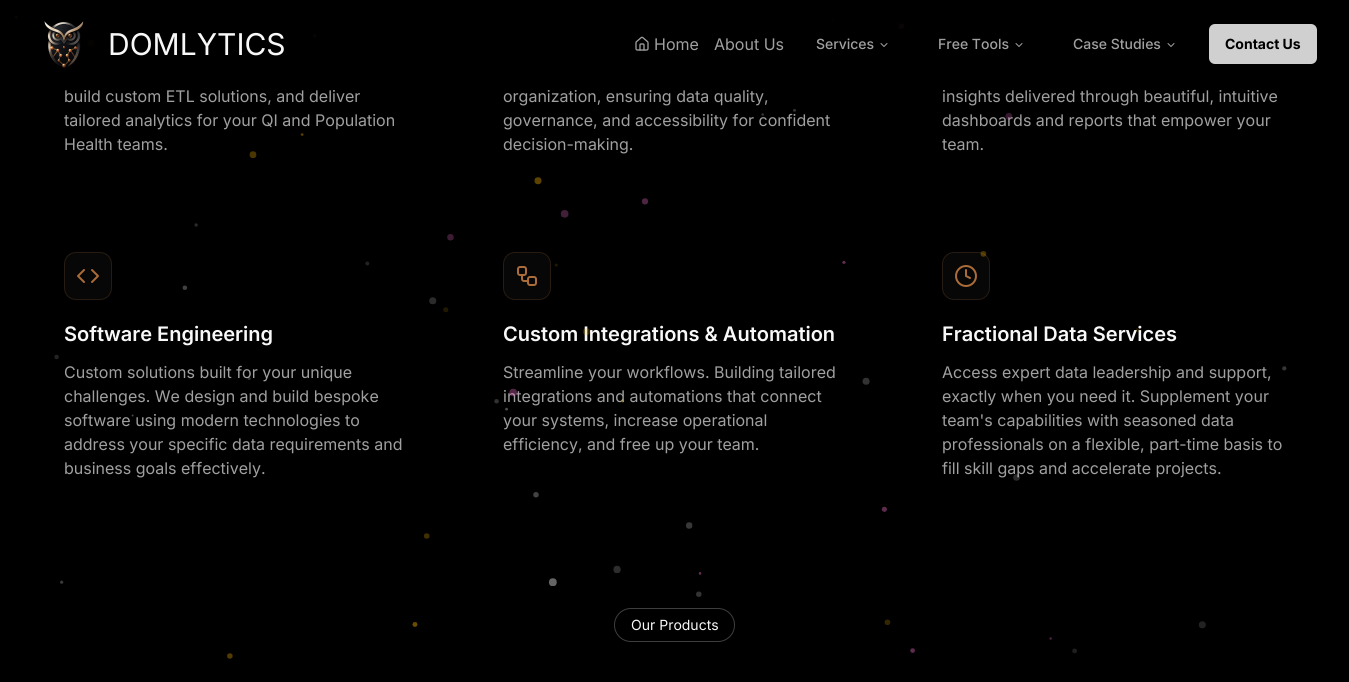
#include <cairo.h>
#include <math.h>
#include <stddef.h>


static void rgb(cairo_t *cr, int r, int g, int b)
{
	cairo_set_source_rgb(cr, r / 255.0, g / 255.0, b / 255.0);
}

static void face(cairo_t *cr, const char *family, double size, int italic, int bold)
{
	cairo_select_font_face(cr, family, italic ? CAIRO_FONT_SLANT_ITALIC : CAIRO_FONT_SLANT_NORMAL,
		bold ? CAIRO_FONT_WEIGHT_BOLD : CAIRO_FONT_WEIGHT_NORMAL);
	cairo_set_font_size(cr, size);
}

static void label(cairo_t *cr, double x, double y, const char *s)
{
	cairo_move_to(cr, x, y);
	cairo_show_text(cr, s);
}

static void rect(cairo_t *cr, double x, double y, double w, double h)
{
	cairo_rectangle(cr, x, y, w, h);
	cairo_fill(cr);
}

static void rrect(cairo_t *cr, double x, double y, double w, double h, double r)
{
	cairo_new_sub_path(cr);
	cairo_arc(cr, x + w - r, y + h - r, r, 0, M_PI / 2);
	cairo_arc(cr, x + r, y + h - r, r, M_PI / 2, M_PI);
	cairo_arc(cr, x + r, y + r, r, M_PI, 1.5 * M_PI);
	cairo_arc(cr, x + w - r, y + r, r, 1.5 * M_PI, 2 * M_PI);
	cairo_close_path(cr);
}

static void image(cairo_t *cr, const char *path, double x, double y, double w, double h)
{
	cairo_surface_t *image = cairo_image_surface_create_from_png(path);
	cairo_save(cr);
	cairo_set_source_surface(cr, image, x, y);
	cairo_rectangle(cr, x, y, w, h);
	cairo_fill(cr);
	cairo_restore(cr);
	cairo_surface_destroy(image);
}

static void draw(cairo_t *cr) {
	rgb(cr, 0, 0, 0);
	cairo_paint(cr);
	face(cr, "Inter", 16, 0, 0);
	rgb(cr, 160, 160, 160);
	label(cr, 64, 102, "build custom ETL solutions, and deliver");
	label(cr, 64, 126, "tailored analytics for your QI and Population");
	label(cr, 64, 150, "Health teams.");
	label(cr, 503, 102, "organization, ensuring data quality,");
	label(cr, 503, 126, "governance, and accessibility for confident");
	label(cr, 503, 150, "decision-making.");
	label(cr, 942, 102, "insights delivered through beautiful, intuitive");
	label(cr, 942, 126, "dashboards and reports that empower your");
	label(cr, 942, 150, "team.");
	rgb(cr, 7, 7, 7);
	rrect(cr, 64, 252, 48, 48, 12);
	cairo_fill(cr);
	rrect(cr, 64.5, 252.5, 47, 47, 11.5);
	cairo_set_source_rgba(cr, 0.667, 0.424, 0.224, 0.2);
	cairo_set_line_width(cr, 1);
	cairo_stroke(cr);
	cairo_new_path(cr);
	cairo_move_to(cr, 92, 282);
	cairo_line_to(cr, 98, 276);
	cairo_line_to(cr, 92, 270);
	cairo_move_to(cr, 84, 270);
	cairo_line_to(cr, 78, 276);
	cairo_line_to(cr, 84, 282);
	rgb(cr, 170, 108, 57);
	cairo_set_line_width(cr, 2);
	cairo_set_line_cap(cr, CAIRO_LINE_CAP_ROUND);
	cairo_set_line_join(cr, CAIRO_LINE_JOIN_ROUND);
	cairo_stroke(cr);
	face(cr, "Inter SemiBold", 20, 0, 0);
	rgb(cr, 248, 248, 248);
	label(cr, 64, 341, "Software Engineering");
	face(cr, "Inter", 16, 0, 0);
	rgb(cr, 160, 160, 160);
	label(cr, 64, 378, "Custom solutions built for your unique");
	label(cr, 64, 402, "challenges. We design and build bespoke");
	label(cr, 64, 426, "software using modern technologies to");
	label(cr, 64, 450, "address your specific data requirements and");
	label(cr, 64, 474, "business goals effectively.");
	rgb(cr, 7, 7, 7);
	rrect(cr, 503, 252, 48, 48, 12);
	cairo_fill(cr);
	rrect(cr, 503.5, 252.5, 47, 47, 11.5);
	cairo_set_source_rgba(cr, 0.667, 0.424, 0.224, 0.2);
	cairo_set_line_width(cr, 1);
	cairo_set_line_cap(cr, CAIRO_LINE_CAP_BUTT);
	cairo_set_line_join(cr, CAIRO_LINE_JOIN_MITER);
	cairo_stroke(cr);
	image(cr, "image3.png", 517, 266, 20, 20);
	face(cr, "Inter SemiBold", 20, 0, 0);
	rgb(cr, 248, 248, 248);
	label(cr, 503, 341, "Custom Integrations & Automation");
	face(cr, "Inter", 16, 0, 0);
	rgb(cr, 160, 160, 160);
	label(cr, 503, 378, "Streamline your workflows. Building tailored");
	label(cr, 503, 402, "integrations and automations that connect");
	label(cr, 503, 426, "your systems, increase operational");
	label(cr, 503, 450, "efficiency, and free up your team.");
	rgb(cr, 7, 7, 7);
	rrect(cr, 942, 252, 48, 48, 12);
	cairo_fill(cr);
	rrect(cr, 942.5, 252.5, 47, 47, 11.5);
	cairo_set_source_rgba(cr, 0.667, 0.424, 0.224, 0.2);
	cairo_stroke(cr);
	cairo_arc(cr, 966, 276, 10, 0, 2 * M_PI);
	rgb(cr, 170, 108, 57);
	cairo_set_line_width(cr, 2);
	cairo_stroke(cr);
	cairo_new_path(cr);
	cairo_move_to(cr, 966, 270);
	cairo_line_to(cr, 966, 276);
	cairo_line_to(cr, 970, 278);
	cairo_set_line_cap(cr, CAIRO_LINE_CAP_ROUND);
	cairo_set_line_join(cr, CAIRO_LINE_JOIN_ROUND);
	cairo_stroke(cr);
	face(cr, "Inter SemiBold", 20, 0, 0);
	rgb(cr, 248, 248, 248);
	label(cr, 942, 341, "Fractional Data Services");
	face(cr, "Inter", 16, 0, 0);
	rgb(cr, 160, 160, 160);
	label(cr, 942, 378, "Access expert data leadership and support,");
	label(cr, 942, 402, "exactly when you need it. Supplement your");
	label(cr, 942, 426, "team's capabilities with seasoned data");
	label(cr, 942, 450, "professionals on a flexible, part-time basis to");
	label(cr, 942, 474, "fill skill gaps and accelerate projects.");
	rrect(cr, 614.5, 608.5, 120, 33, 16.5);
	rgb(cr, 62, 62, 62);
	cairo_set_line_width(cr, 1);
	cairo_set_line_cap(cr, CAIRO_LINE_CAP_BUTT);
	cairo_set_line_join(cr, CAIRO_LINE_JOIN_MITER);
	cairo_stroke(cr);
	face(cr, "Inter", 14, 0, 0);
	rgb(cr, 248, 248, 248);
	label(cr, 631, 630, "Our Products");
	image(cr, "image0.png", 14, 15, 1273, 644);
	cairo_set_source_rgba(cr, 0, 0, 0, 0.9);
	rect(cr, 14, 15, 891, 32);
	image(cr, "image1.png", 44, 21, 40, 47);
	face(cr, "Inter", 30, 0, 0);
	rgb(cr, 248, 248, 248);
	label(cr, 108, 55, "DOMLYTICS");
	image(cr, "image2.png", 635, 36, 14, 15);
	face(cr, "Inter", 16, 0, 0);
	rgb(cr, 160, 160, 160);
	label(cr, 654, 50, "Home");
	label(cr, 714, 50, "About Us");
	face(cr, "Inter Medium", 14, 0, 0);
	label(cr, 816, 49, "Services");
	cairo_new_path(cr);
	cairo_move_to(cr, 881, 43.5);
	cairo_line_to(cr, 884, 46.5);
	cairo_line_to(cr, 887, 43.5);
	cairo_set_line_cap(cr, CAIRO_LINE_CAP_ROUND);
	cairo_set_line_join(cr, CAIRO_LINE_JOIN_ROUND);
	cairo_stroke(cr);
	label(cr, 938, 49, "Free Tools");
	cairo_new_path(cr);
	cairo_move_to(cr, 1016, 43.5);
	cairo_line_to(cr, 1019, 46.5);
	cairo_line_to(cr, 1022, 43.5);
	cairo_stroke(cr);
	label(cr, 1073, 49, "Case Studies");
	cairo_new_path(cr);
	cairo_move_to(cr, 1168, 43.5);
	cairo_line_to(cr, 1171, 46.5);
	cairo_line_to(cr, 1174, 43.5);
	cairo_stroke(cr);
	rgb(cr, 208, 208, 208);
	rrect(cr, 1209, 24, 108, 40, 6);
	cairo_fill(cr);
	face(cr, "Inter", 14, 0, 1);
	rgb(cr, 0, 0, 0);
	label(cr, 1225, 49, "Contact Us");
}

int main(void) {
	cairo_surface_t *surface = cairo_image_surface_create(CAIRO_FORMAT_RGB24, 1349, 682);
	cairo_t *cr = cairo_create(surface);
	cairo_font_options_t *options = cairo_font_options_create();
	cairo_font_options_set_hint_metrics(options, CAIRO_HINT_METRICS_OFF);
	cairo_font_options_set_hint_style(options, CAIRO_HINT_STYLE_NONE);
	cairo_set_font_options(cr, options);
	cairo_set_miter_limit(cr, 4);
	draw(cr);
	cairo_surface_write_to_png(surface, "render.png");
	cairo_font_options_destroy(options);
	cairo_destroy(cr);
	cairo_surface_destroy(surface);
	return 0;
}
